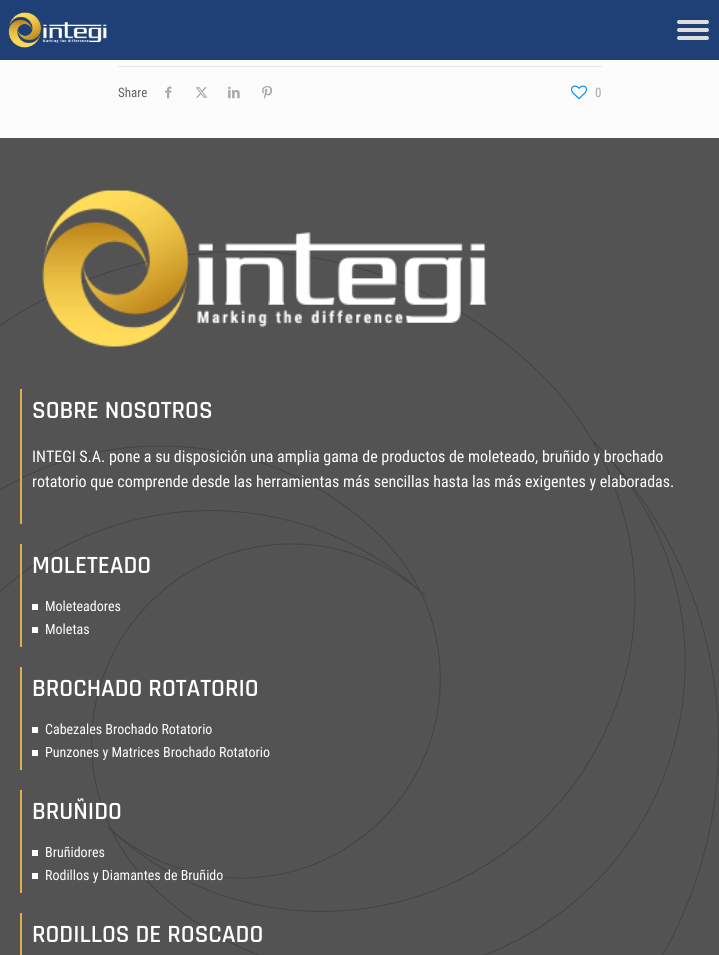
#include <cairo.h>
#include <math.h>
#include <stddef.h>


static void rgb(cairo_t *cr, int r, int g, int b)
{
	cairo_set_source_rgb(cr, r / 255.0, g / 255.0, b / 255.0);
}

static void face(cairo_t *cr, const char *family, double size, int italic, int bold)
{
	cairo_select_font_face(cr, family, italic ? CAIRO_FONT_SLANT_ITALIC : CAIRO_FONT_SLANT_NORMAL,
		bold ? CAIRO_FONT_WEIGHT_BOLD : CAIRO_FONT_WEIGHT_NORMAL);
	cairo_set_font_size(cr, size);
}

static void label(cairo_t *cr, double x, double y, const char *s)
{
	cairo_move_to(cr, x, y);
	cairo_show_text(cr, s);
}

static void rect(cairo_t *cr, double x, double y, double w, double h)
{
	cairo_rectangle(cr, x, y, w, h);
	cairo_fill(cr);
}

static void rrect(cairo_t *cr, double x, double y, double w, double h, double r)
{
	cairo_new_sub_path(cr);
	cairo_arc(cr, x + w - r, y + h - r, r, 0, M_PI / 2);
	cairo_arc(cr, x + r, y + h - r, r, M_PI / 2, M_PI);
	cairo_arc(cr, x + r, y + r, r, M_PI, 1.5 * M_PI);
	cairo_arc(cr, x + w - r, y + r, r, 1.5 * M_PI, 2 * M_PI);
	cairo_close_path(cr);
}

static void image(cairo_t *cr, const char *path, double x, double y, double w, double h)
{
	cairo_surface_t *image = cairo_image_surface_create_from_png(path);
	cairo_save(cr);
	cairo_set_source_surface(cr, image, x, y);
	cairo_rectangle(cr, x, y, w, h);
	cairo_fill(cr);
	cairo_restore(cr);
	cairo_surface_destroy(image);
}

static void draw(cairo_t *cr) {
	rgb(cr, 252, 252, 252);
	cairo_paint(cr);
	rgb(cr, 30, 64, 118);
	rect(cr, 0, 0, 719, 60);
	image(cr, "image0.png", 8, 12, 99, 36);
	rgb(cr, 221, 221, 221);
	rrect(cr, 677, 20, 32, 4, 2);
	cairo_fill(cr);
	rrect(cr, 677, 28, 32, 4, 2);
	cairo_fill(cr);
	rrect(cr, 677, 36, 32, 4, 2);
	cairo_fill(cr);
	rgb(cr, 232, 232, 232);
	rect(cr, 118, 66, 484, 1);
	face(cr, "Roboto Condensed", 13, 0, 0);
	rgb(cr, 98, 98, 98);
	label(cr, 118, 97, "Share");
	image(cr, "image1.png", 165, 86, 7, 13);
	image(cr, "image2.png", 195, 87, 13, 11);
	image(cr, "image3.png", 228, 86, 12, 13);
	image(cr, "image4.png", 262, 85, 11, 14);
	image(cr, "image5.png", 571, 85, 16, 15);
	rgb(cr, 168, 168, 168);
	label(cr, 595, 97, "0");
	rgb(cr, 83, 83, 83);
	rect(cr, 0, 138, 719, 817);
	image(cr, "image6.png", 0, 251, 719, 704);
	image(cr, "image7.png", 42, 190, 445, 157);
	rgb(cr, 227, 172, 74);
	rect(cr, 20, 389, 2, 135);
	face(cr, "Rajdhani SemiBold", 25, 0, 0);
	rgb(cr, 255, 255, 255);
	label(cr, 32, 418, "SOBRE NOSOTROS");
	face(cr, "Roboto Condensed", 16, 0, 0);
	label(cr, 32, 462, "INTEGI S.A. pone a su disposición una amplia gama de productos de moleteado, bruñido y brochado");
	label(cr, 32, 487, "rotatorio que comprende desde las herramientas más sencillas hasta las más exigentes y elaboradas.");
	rgb(cr, 227, 172, 74);
	rect(cr, 20, 544, 2, 103);
	face(cr, "Rajdhani SemiBold", 25, 0, 0);
	rgb(cr, 255, 255, 255);
	label(cr, 32, 573, "MOLETEADO");
	rect(cr, 32, 604, 6, 6);
	face(cr, "Roboto Condensed", 14, 0, 0);
	label(cr, 45, 611, "Moleteadores");
	rect(cr, 32, 627, 6, 6);
	label(cr, 45, 634, "Moletas");
	rgb(cr, 227, 172, 74);
	rect(cr, 20, 667, 2, 103);
	face(cr, "Rajdhani SemiBold", 25, 0, 0);
	rgb(cr, 255, 255, 255);
	label(cr, 32, 696, "BROCHADO ROTATORIO");
	rect(cr, 32, 727, 6, 6);
	face(cr, "Roboto Condensed", 14, 0, 0);
	label(cr, 45, 734, "Cabezales Brochado Rotatorio");
	rect(cr, 32, 750, 6, 6);
	label(cr, 45, 757, "Punzones y Matrices Brochado Rotatorio");
	rgb(cr, 227, 172, 74);
	rect(cr, 20, 790, 2, 103);
	face(cr, "Rajdhani SemiBold", 25, 0, 0);
	rgb(cr, 255, 255, 255);
	label(cr, 32, 819, "BRUÑIDO");
	rect(cr, 32, 850, 6, 6);
	face(cr, "Roboto Condensed", 14, 0, 0);
	label(cr, 45, 857, "Bruñidores");
	rect(cr, 32, 873, 6, 6);
	label(cr, 45, 880, "Rodillos y Diamantes de Bruñido");
	rgb(cr, 227, 172, 74);
	rect(cr, 20, 913, 2, 42);
	face(cr, "Rajdhani SemiBold", 25, 0, 0);
	rgb(cr, 255, 255, 255);
	label(cr, 32, 942, "RODILLOS DE ROSCADO");
}

int main(void) {
	cairo_surface_t *surface = cairo_image_surface_create(CAIRO_FORMAT_RGB24, 719, 955);
	cairo_t *cr = cairo_create(surface);
	cairo_font_options_t *options = cairo_font_options_create();
	cairo_font_options_set_hint_metrics(options, CAIRO_HINT_METRICS_OFF);
	cairo_font_options_set_hint_style(options, CAIRO_HINT_STYLE_NONE);
	cairo_set_font_options(cr, options);
	cairo_set_miter_limit(cr, 4);
	draw(cr);
	cairo_surface_write_to_png(surface, "render.png");
	cairo_font_options_destroy(options);
	cairo_destroy(cr);
	cairo_surface_destroy(surface);
	return 0;
}
